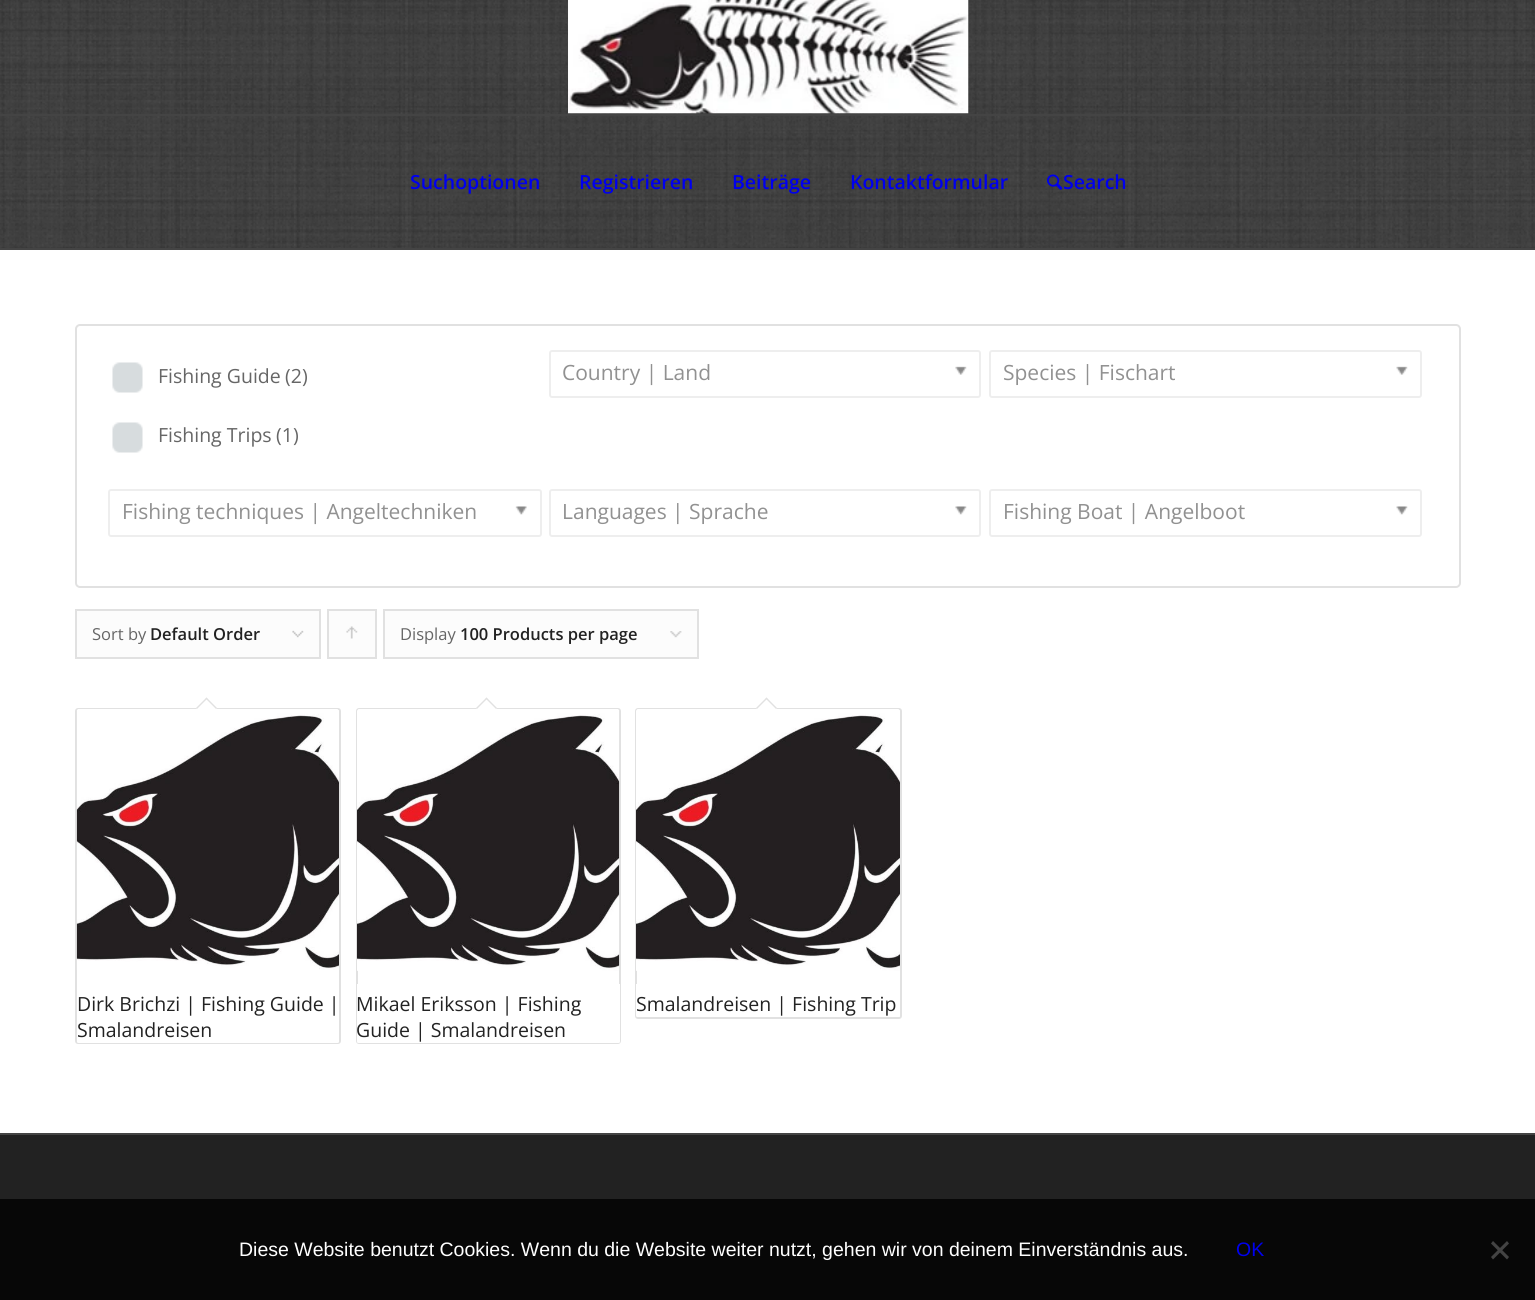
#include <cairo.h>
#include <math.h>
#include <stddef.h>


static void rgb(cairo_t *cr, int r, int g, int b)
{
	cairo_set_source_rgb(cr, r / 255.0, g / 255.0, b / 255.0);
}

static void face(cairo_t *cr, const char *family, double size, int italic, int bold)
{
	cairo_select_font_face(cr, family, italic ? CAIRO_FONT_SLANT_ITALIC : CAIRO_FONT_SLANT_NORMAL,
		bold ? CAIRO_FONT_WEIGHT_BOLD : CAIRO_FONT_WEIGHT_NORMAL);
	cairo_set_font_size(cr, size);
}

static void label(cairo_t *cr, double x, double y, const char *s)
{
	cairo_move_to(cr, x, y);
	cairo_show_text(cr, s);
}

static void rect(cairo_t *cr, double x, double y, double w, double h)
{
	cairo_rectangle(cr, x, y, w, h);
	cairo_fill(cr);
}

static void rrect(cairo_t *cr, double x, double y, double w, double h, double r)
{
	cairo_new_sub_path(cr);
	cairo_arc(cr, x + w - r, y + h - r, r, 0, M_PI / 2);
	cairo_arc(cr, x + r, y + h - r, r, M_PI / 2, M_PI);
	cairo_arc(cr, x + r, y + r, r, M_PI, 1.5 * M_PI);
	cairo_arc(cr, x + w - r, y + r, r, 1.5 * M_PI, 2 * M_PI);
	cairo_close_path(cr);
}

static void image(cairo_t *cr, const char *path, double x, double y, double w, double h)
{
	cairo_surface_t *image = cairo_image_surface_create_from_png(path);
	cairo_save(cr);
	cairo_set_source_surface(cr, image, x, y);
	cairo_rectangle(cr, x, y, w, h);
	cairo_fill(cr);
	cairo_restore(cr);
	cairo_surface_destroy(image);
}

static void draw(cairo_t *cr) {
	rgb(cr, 51, 51, 51);
	cairo_paint(cr);
	image(cr, "image0.png", 0, 0, 1535, 248);
	rgb(cr, 68, 68, 68);
	rect(cr, 0, 248, 1535, 2);
	image(cr, "image1.png", 568, 0, 401, 114);
	rect(cr, 0, 114, 1535, 2);
	face(cr, "Open Sans SemiBold", 19.5, 0, 0);
	rgb(cr, 0, 0, 238);
	label(cr, 410, 189, "Suchoptionen");
	label(cr, 579, 189, "Registrieren");
	label(cr, 732, 189, "Beiträge");
	label(cr, 850, 189, "Kontaktformular");
	image(cr, "image2.png", 1047, 174, 16, 16);
	label(cr, 1063, 189, "Search");
	rgb(cr, 255, 255, 255);
	rect(cr, 0, 250, 1535, 883);
	rrect(cr, 76, 325, 1384, 262, 4);
	rgb(cr, 225, 225, 225);
	cairo_stroke(cr);
	image(cr, "image3.png", 112, 362, 31, 31);
	face(cr, "Open Sans", 19.5, 0, 0);
	rgb(cr, 102, 102, 102);
	label(cr, 158, 383, "Fishing Guide");
	label(cr, 285, 383, "(2)");
	image(cr, "image3.png", 112, 422, 31, 31);
	label(cr, 158, 442, "Fishing Trips");
	label(cr, 276, 442, "(1)");
	rrect(cr, 550, 351, 430, 46, 2);
	rgb(cr, 238, 238, 238);
	cairo_stroke(cr);
	face(cr, "Open Sans", 21, 0, 0);
	rgb(cr, 145, 145, 145);
	label(cr, 562, 380, "Country | Land");
	image(cr, "image4.png", 955, 366, 12, 9);
	rrect(cr, 990, 351, 431, 46, 2);
	rgb(cr, 238, 238, 238);
	cairo_stroke(cr);
	rgb(cr, 145, 145, 145);
	label(cr, 1003, 380, "Species | Fischart");
	image(cr, "image5.png", 1396, 366, 12, 9);
	rrect(cr, 109, 490, 432, 46, 2);
	rgb(cr, 238, 238, 238);
	cairo_stroke(cr);
	rgb(cr, 145, 145, 145);
	label(cr, 122, 519, "Fishing techniques | Angeltechniken");
	image(cr, "image6.png", 515, 506, 12, 9);
	rrect(cr, 550, 490, 430, 46, 2);
	rgb(cr, 238, 238, 238);
	cairo_stroke(cr);
	rgb(cr, 145, 145, 145);
	label(cr, 562, 519, "Languages | Sprache");
	image(cr, "image7.png", 955, 506, 12, 9);
	rrect(cr, 990, 490, 431, 46, 2);
	rgb(cr, 238, 238, 238);
	cairo_stroke(cr);
	rgb(cr, 145, 145, 145);
	label(cr, 1003, 519, "Fishing Boat | Angelboot");
	image(cr, "image8.png", 1396, 506, 12, 9);
	rgb(cr, 252, 252, 252);
	rect(cr, 77, 611, 242, 46);
	image(cr, "image9.png", 292, 630, 12, 8);
	cairo_rectangle(cr, 76, 610, 244, 48);
	rgb(cr, 225, 225, 225);
	cairo_stroke(cr);
	face(cr, "Open Sans", 16.5, 0, 0);
	rgb(cr, 102, 102, 102);
	label(cr, 92, 640, "Sort by");
	face(cr, "Open Sans SemiBold", 16.5, 0, 0);
	rgb(cr, 34, 34, 34);
	label(cr, 150, 640, "Default Order");
	rgb(cr, 252, 252, 252);
	rect(cr, 329, 611, 46, 46);
	image(cr, "image10.png", 346, 626, 12, 13);
	cairo_rectangle(cr, 328, 610, 48, 48);
	rgb(cr, 225, 225, 225);
	cairo_stroke(cr);
	rgb(cr, 252, 252, 252);
	rect(cr, 385, 611, 312, 46);
	image(cr, "image11.png", 670, 631, 12, 7);
	cairo_rectangle(cr, 384, 610, 314, 48);
	rgb(cr, 225, 225, 225);
	cairo_stroke(cr);
	face(cr, "Open Sans", 16.5, 0, 0);
	rgb(cr, 102, 102, 102);
	label(cr, 400, 640, "Display");
	face(cr, "Open Sans SemiBold", 16.5, 0, 0);
	rgb(cr, 34, 34, 34);
	label(cr, 460, 640, "100 Products per page");
	rrect(cr, 76, 709, 264, 334, 2);
	rgb(cr, 225, 225, 225);
	cairo_stroke(cr);
	image(cr, "image12.png", 76, 709, 263, 261);
	rgb(cr, 255, 255, 255);
	cairo_new_path(cr);
	cairo_move_to(cr, 77, 984);
	cairo_line_to(cr, 339, 984);
	cairo_line_to(cr, 339, 1041.5);
	cairo_curve_to(cr, 339, 1042.5, 338.5, 1043, 337.5, 1043);
	cairo_line_to(cr, 78.5, 1043);
	cairo_curve_to(cr, 77.5, 1043, 77, 1042.5, 77, 1041.5);
	cairo_close_path(cr);
	cairo_fill(cr);
	cairo_new_path(cr);
	cairo_move_to(cr, 206.5, 697.5);
	cairo_line_to(cr, 217, 708);
	cairo_line_to(cr, 206.5, 718.5);
	cairo_line_to(cr, 196, 708);
	cairo_close_path(cr);
	cairo_fill(cr);
	rgb(cr, 225, 225, 225);
	cairo_new_path(cr);
	cairo_move_to(cr, 206.5, 697.5);
	cairo_line_to(cr, 217, 708);
	cairo_line_to(cr, 216, 709);
	cairo_line_to(cr, 205.5, 698.5);
	cairo_close_path(cr);
	cairo_fill(cr);
	cairo_new_path(cr);
	cairo_move_to(cr, 206.5, 697.5);
	cairo_line_to(cr, 207.5, 698.5);
	cairo_line_to(cr, 197, 709);
	cairo_line_to(cr, 196, 708);
	cairo_close_path(cr);
	cairo_fill(cr);
	face(cr, "Open Sans", 19.5, 0, 0);
	rgb(cr, 34, 34, 34);
	label(cr, 77, 1011, "Dirk Brichzi | Fishing Guide |");
	label(cr, 77, 1037, "Smalandreisen");
	rrect(cr, 357, 709, 263, 334, 2);
	rgb(cr, 225, 225, 225);
	cairo_stroke(cr);
	image(cr, "image13.png", 357, 709, 263, 262);
	rgb(cr, 255, 255, 255);
	cairo_new_path(cr);
	cairo_move_to(cr, 357, 984);
	cairo_line_to(cr, 620, 984);
	cairo_line_to(cr, 620, 1041.5);
	cairo_curve_to(cr, 620, 1042.5, 619.5, 1043, 618.5, 1043);
	cairo_line_to(cr, 358.5, 1043);
	cairo_curve_to(cr, 357.5, 1043, 357, 1042.5, 357, 1041.5);
	cairo_close_path(cr);
	cairo_fill(cr);
	cairo_new_path(cr);
	cairo_move_to(cr, 486.5, 697.5);
	cairo_line_to(cr, 497, 708);
	cairo_line_to(cr, 486.5, 718.5);
	cairo_line_to(cr, 476, 708);
	cairo_close_path(cr);
	cairo_fill(cr);
	rgb(cr, 225, 225, 225);
	cairo_new_path(cr);
	cairo_move_to(cr, 486.5, 697.5);
	cairo_line_to(cr, 497, 708);
	cairo_line_to(cr, 496, 709);
	cairo_line_to(cr, 485.5, 698.5);
	cairo_close_path(cr);
	cairo_fill(cr);
	cairo_new_path(cr);
	cairo_move_to(cr, 486.5, 697.5);
	cairo_line_to(cr, 487.5, 698.5);
	cairo_line_to(cr, 477, 709);
	cairo_line_to(cr, 476, 708);
	cairo_close_path(cr);
	cairo_fill(cr);
	rgb(cr, 34, 34, 34);
	label(cr, 356, 1011, "Mikael Eriksson | Fishing");
	label(cr, 356, 1037, "Guide | Smalandreisen");
	rrect(cr, 636, 709, 265, 309, 2);
	rgb(cr, 225, 225, 225);
	cairo_stroke(cr);
	image(cr, "image14.png", 636, 709, 264, 262);
	rgb(cr, 255, 255, 255);
	cairo_new_path(cr);
	cairo_move_to(cr, 636, 984);
	cairo_line_to(cr, 900, 984);
	cairo_line_to(cr, 900, 1015.5);
	cairo_curve_to(cr, 900, 1016.5, 899.5, 1017, 898.5, 1017);
	cairo_line_to(cr, 637.5, 1017);
	cairo_curve_to(cr, 636.5, 1017, 636, 1016.5, 636, 1015.5);
	cairo_close_path(cr);
	cairo_fill(cr);
	cairo_new_path(cr);
	cairo_move_to(cr, 766.5, 697.5);
	cairo_line_to(cr, 777, 708);
	cairo_line_to(cr, 766.5, 718.5);
	cairo_line_to(cr, 756, 708);
	cairo_close_path(cr);
	cairo_fill(cr);
	rgb(cr, 225, 225, 225);
	cairo_new_path(cr);
	cairo_move_to(cr, 766.5, 697.5);
	cairo_line_to(cr, 777, 708);
	cairo_line_to(cr, 776, 709);
	cairo_line_to(cr, 765.5, 698.5);
	cairo_close_path(cr);
	cairo_fill(cr);
	cairo_new_path(cr);
	cairo_move_to(cr, 766.5, 697.5);
	cairo_line_to(cr, 767.5, 698.5);
	cairo_line_to(cr, 757, 709);
	cairo_line_to(cr, 756, 708);
	cairo_close_path(cr);
	cairo_fill(cr);
	rgb(cr, 34, 34, 34);
	label(cr, 636, 1011, "Smalandreisen | Fishing Trip");
	rect(cr, 0, 1135, 1535, 165);
	rgb(cr, 68, 68, 68);
	rect(cr, 0, 1133, 1535, 2);
	cairo_set_source_rgba(cr, 0, 0, 0, 0.8);
	rect(cr, 0, 1199, 1535, 101);
	face(cr, "Liberation Sans", 19.5, 0, 0);
	rgb(cr, 255, 255, 255);
	label(cr, 239, 1256, "Diese Website benutzt Cookies. Wenn du die Website weiter nutzt, gehen wir von deinem Einverständnis aus.");
	rgb(cr, 0, 0, 238);
	label(cr, 1236, 1256, "OK");
	rgb(cr, 67, 67, 67);
	cairo_new_path(cr);
	cairo_move_to(cr, 1507, 1241);
	cairo_line_to(cr, 1509, 1243.5);
	cairo_line_to(cr, 1493, 1259.5);
	cairo_line_to(cr, 1491, 1257);
	cairo_close_path(cr);
	cairo_fill(cr);
	cairo_new_path(cr);
	cairo_move_to(cr, 1491, 1243.5);
	cairo_line_to(cr, 1493, 1241);
	cairo_line_to(cr, 1509, 1257);
	cairo_line_to(cr, 1507, 1259.5);
	cairo_close_path(cr);
	cairo_fill(cr);
}

int main(void) {
	cairo_surface_t *surface = cairo_image_surface_create(CAIRO_FORMAT_RGB24, 1535, 1300);
	cairo_t *cr = cairo_create(surface);
	cairo_font_options_t *options = cairo_font_options_create();
	cairo_font_options_set_hint_metrics(options, CAIRO_HINT_METRICS_OFF);
	cairo_font_options_set_hint_style(options, CAIRO_HINT_STYLE_NONE);
	cairo_set_font_options(cr, options);
	cairo_set_miter_limit(cr, 4);
	draw(cr);
	cairo_surface_write_to_png(surface, "render.png");
	cairo_font_options_destroy(options);
	cairo_destroy(cr);
	cairo_surface_destroy(surface);
	return 0;
}
